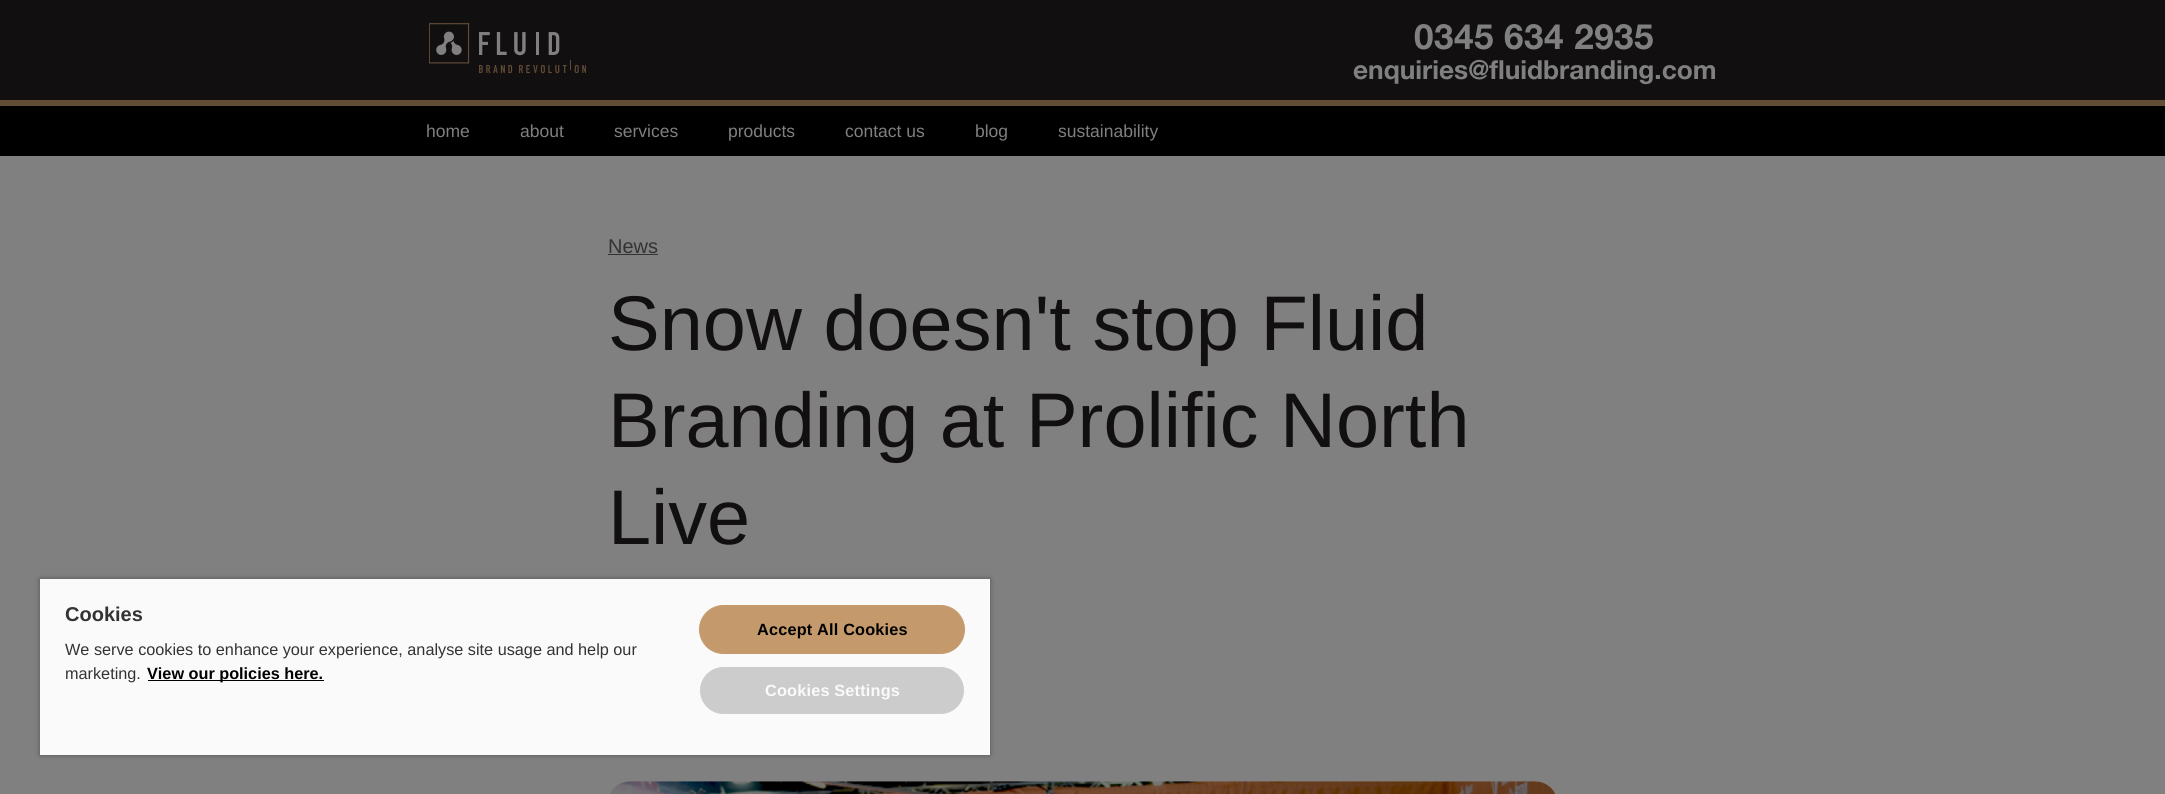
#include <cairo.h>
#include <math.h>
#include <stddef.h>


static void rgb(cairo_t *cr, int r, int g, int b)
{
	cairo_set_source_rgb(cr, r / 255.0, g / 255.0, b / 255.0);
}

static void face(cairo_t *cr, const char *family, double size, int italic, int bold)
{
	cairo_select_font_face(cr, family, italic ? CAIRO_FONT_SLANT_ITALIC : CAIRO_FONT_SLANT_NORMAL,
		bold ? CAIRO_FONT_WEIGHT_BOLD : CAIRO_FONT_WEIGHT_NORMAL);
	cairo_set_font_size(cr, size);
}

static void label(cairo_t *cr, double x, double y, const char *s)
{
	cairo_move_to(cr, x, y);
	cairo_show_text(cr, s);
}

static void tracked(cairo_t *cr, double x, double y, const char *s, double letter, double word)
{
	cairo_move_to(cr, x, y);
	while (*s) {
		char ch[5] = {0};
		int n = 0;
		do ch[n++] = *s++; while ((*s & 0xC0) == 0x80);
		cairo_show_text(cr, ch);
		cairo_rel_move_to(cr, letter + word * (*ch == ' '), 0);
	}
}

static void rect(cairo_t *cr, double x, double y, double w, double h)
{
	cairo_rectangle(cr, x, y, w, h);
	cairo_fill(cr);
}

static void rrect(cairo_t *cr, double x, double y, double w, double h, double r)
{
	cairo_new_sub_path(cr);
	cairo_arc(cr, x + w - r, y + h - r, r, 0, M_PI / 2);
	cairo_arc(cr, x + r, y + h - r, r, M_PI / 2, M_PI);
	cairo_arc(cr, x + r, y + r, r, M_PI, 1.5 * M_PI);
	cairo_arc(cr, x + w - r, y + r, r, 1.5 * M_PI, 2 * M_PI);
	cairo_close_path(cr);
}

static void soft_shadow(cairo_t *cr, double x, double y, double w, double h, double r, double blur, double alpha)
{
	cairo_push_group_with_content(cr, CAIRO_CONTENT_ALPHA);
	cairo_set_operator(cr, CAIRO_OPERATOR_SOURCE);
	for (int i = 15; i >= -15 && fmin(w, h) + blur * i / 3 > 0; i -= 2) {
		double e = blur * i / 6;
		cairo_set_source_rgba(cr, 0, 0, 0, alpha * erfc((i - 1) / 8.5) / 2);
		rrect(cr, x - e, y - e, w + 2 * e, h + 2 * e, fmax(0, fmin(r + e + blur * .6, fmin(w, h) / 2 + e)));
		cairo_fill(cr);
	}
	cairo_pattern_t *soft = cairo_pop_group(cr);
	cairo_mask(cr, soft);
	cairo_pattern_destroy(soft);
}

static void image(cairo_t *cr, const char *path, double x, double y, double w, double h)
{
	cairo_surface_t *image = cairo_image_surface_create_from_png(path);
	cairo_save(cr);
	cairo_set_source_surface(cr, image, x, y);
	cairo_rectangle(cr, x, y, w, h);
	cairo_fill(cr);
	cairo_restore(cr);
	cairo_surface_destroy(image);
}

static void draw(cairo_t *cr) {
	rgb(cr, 128, 128, 128);
	cairo_paint(cr);
	rgb(cr, 98, 77, 54);
	rect(cr, 0, 100, 2165, 6);
	rgb(cr, 17, 15, 16);
	rect(cr, 0, 0, 2165, 100);
	image(cr, "image0.png", 429, 23, 157, 51);
	face(cr, "Helvetica Neue", 35, 0, 1);
	rgb(cr, 128, 128, 128);
	tracked(cr, 1414, 49, "0345 634 2935", 0.5, 0);
	face(cr, "Helvetica Neue", 26.25, 0, 1);
	label(cr, 1353, 79, "enquiries@fluidbranding.com");
	rgb(cr, 0, 0, 0);
	rect(cr, 0, 106, 2165, 50);
	face(cr, "Liberation Sans", 17.5, 0, 0);
	rgb(cr, 128, 128, 128);
	label(cr, 426, 137, "home");
	label(cr, 520, 137, "about");
	label(cr, 614, 137, "services");
	label(cr, 728, 137, "products");
	label(cr, 845, 137, "contact us");
	label(cr, 975, 137, "blog");
	label(cr, 1058, 137, "sustainability");
	face(cr, "Liberation Sans", 20, 0, 0);
	rgb(cr, 51, 51, 51);
	label(cr, 608, 253, "News");
	rect(cr, 608, 254, 50, 1);
	face(cr, "Liberation Sans", 77.5, 0, 0);
	rgb(cr, 17, 15, 16);
	label(cr, 608, 350, "Snow doesn't stop Fluid");
	label(cr, 608, 447, "Branding at Prolific North");
	label(cr, 608, 544, "Live");
	image(cr, "image1.png", 610, 781, 945, 13);
	rgb(cr, 0, 0, 0);
	soft_shadow(cr, 40, 579, 950, 176, 0, 2.5, 0.35);
	rgb(cr, 250, 250, 250);
	rect(cr, 40, 579, 950, 176);
	face(cr, "Liberation Sans", 20, 0, 1);
	rgb(cr, 51, 51, 51);
	label(cr, 65, 621, "Cookies");
	face(cr, "Liberation Sans", 16.25, 0, 0);
	label(cr, 65, 655, "We serve cookies to enhance your experience, analyse site usage and help our");
	label(cr, 65, 679, "marketing.");
	rgb(cr, 0, 0, 0);
	rect(cr, 148, 680, 176, 1);
	face(cr, "Liberation Sans", 16.25, 0, 1);
	label(cr, 147, 679, "View our policies here.");
	rgb(cr, 196, 154, 108);
	rrect(cr, 699.5, 605.5, 265, 48, 24);
	cairo_fill_preserve(cr);
	cairo_set_line_width(cr, 1);
	cairo_stroke(cr);
	rgb(cr, 0, 0, 0);
	tracked(cr, 757, 635, "Accept All Cookies", 0.2, 0);
	rgb(cr, 204, 204, 204);
	rrect(cr, 699.5, 666.5, 265, 48, 24);
	cairo_fill_preserve(cr);
	rgb(cr, 250, 250, 250);
	cairo_stroke(cr);
	tracked(cr, 765, 696, "Cookies Settings", 0.2, 0);
}

int main(void) {
	cairo_surface_t *surface = cairo_image_surface_create(CAIRO_FORMAT_RGB24, 2165, 794);
	cairo_t *cr = cairo_create(surface);
	cairo_font_options_t *options = cairo_font_options_create();
	cairo_font_options_set_hint_metrics(options, CAIRO_HINT_METRICS_OFF);
	cairo_font_options_set_hint_style(options, CAIRO_HINT_STYLE_NONE);
	cairo_set_font_options(cr, options);
	cairo_set_miter_limit(cr, 4);
	draw(cr);
	cairo_surface_write_to_png(surface, "render.png");
	cairo_font_options_destroy(options);
	cairo_destroy(cr);
	cairo_surface_destroy(surface);
	return 0;
}
